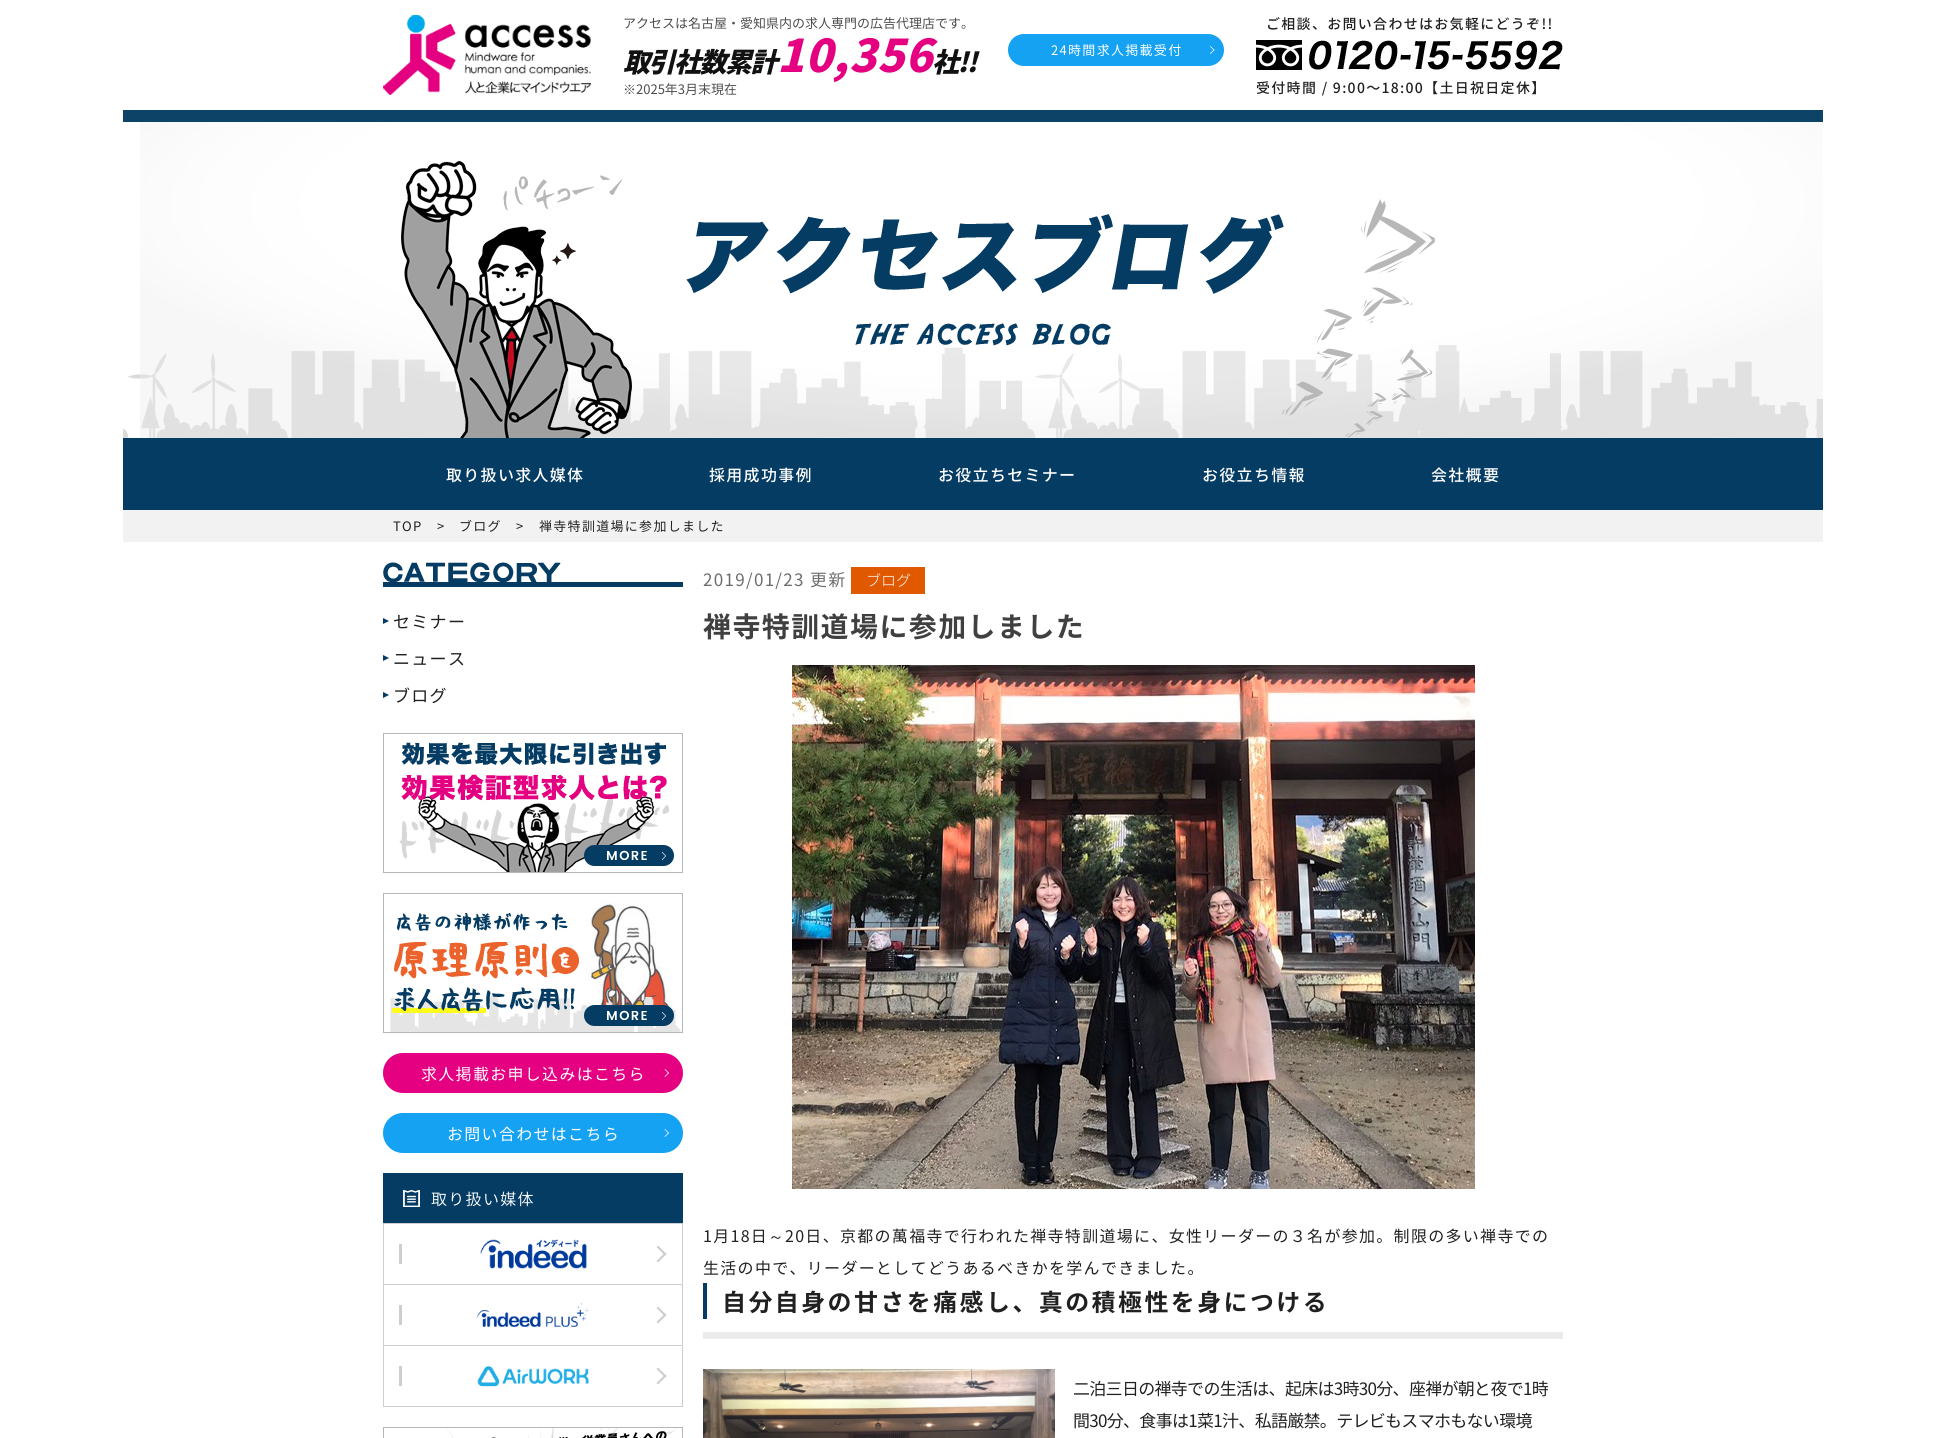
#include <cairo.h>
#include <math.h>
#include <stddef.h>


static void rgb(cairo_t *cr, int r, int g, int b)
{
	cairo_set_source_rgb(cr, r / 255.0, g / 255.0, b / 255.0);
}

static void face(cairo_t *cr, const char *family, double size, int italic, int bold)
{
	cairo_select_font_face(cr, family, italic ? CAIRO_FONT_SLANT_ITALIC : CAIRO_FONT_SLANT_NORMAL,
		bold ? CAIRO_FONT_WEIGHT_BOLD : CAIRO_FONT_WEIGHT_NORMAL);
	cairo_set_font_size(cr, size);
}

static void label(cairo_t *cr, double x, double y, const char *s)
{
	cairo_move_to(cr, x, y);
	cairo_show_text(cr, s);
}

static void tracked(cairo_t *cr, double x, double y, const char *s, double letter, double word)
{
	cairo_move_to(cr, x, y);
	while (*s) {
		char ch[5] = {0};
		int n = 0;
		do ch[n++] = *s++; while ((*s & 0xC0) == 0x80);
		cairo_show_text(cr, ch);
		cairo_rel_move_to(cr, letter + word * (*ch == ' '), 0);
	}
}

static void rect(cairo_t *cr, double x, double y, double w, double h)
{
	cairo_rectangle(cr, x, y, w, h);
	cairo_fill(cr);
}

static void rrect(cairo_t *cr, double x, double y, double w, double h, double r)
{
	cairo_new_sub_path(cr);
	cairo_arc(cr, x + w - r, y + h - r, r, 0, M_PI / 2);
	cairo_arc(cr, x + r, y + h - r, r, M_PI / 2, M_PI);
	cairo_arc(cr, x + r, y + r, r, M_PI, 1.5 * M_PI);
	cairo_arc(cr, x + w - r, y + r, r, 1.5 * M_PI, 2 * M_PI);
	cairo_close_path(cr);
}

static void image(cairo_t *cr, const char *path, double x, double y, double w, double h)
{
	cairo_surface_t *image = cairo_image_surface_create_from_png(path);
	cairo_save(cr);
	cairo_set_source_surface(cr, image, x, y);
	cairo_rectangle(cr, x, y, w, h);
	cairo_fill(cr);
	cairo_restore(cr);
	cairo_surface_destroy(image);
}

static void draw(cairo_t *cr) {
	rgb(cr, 255, 255, 255);
	cairo_paint(cr);
	image(cr, "image0.png", 383, 15, 208, 80);
	face(cr, "Noto Sans JP", 13, 0, 0);
	rgb(cr, 77, 77, 77);
	label(cr, 623, 28, "アクセスは名古屋・愛知県内の求人専門の広告代理店です。");
	face(cr, "Noto Sans JP Black", 27, 1, 0);
	rgb(cr, 17, 17, 17);
	tracked(cr, 623, 72, "取引社数累計", -1.5, 0);
	face(cr, "Noto Sans JP Black", 45, 1, 0);
	rgb(cr, 228, 0, 129);
	tracked(cr, 777, 72, "10,356", 0.5, 0);
	face(cr, "Noto Sans JP Black", 27, 1, 0);
	rgb(cr, 17, 17, 17);
	tracked(cr, 932, 72, "社!!", -1.5, 0);
	face(cr, "WenQuanYi Zen Hei Medium", 13, 0, 0);
	rgb(cr, 77, 77, 77);
	label(cr, 623, 94, "※");
	face(cr, "Noto Sans JP", 13, 0, 0);
	label(cr, 636, 94, "2025年3月末現在");
	rgb(cr, 22, 162, 242);
	rrect(cr, 1008, 34, 216, 32, 16);
	cairo_fill(cr);
	rgb(cr, 255, 255, 255);
	tracked(cr, 1051, 55, "24時間求人掲載受付", 1.3, 0);
	cairo_new_path(cr);
	cairo_move_to(cr, 1210.5, 46);
	cairo_line_to(cr, 1214.5, 50);
	cairo_line_to(cr, 1214, 50.5);
	cairo_line_to(cr, 1210, 46.5);
	cairo_close_path(cr);
	cairo_fill(cr);
	cairo_new_path(cr);
	cairo_move_to(cr, 1214, 49.5);
	cairo_line_to(cr, 1214.5, 50);
	cairo_line_to(cr, 1210.5, 54);
	cairo_line_to(cr, 1210, 53.5);
	cairo_close_path(cr);
	cairo_fill(cr);
	face(cr, "Noto Sans JP Medium", 14, 0, 0);
	rgb(cr, 32, 32, 32);
	tracked(cr, 1266, 29, "ご相談、お問い合わせはお気軽にどうぞ!!", 1.3, 0);
	image(cr, "image1.png", 1256, 40, 307, 30);
	tracked(cr, 1256, 93, "受付時間 / 9:00〜18:00【土日祝日定休】", 1.3, 0);
	rgb(cr, 14, 67, 104);
	rect(cr, 123, 110, 1700, 12);
	image(cr, "image2.png", 123, 122, 1700, 316);
	rgb(cr, 5, 60, 99);
	rect(cr, 123, 438, 1700, 72);
	face(cr, "Noto Sans JP Medium", 16, 0, 0);
	rgb(cr, 255, 255, 255);
	tracked(cr, 446, 481, "取り扱い求人媒体", 1.3, 0);
	tracked(cr, 709, 481, "採用成功事例", 1.3, 0);
	tracked(cr, 938, 481, "お役立ちセミナー", 1.3, 0);
	tracked(cr, 1202, 481, "お役立ち情報", 1.3, 0);
	tracked(cr, 1431, 481, "会社概要", 1.3, 0);
	rgb(cr, 242, 242, 242);
	rect(cr, 123, 510, 1700, 32);
	face(cr, "Noto Sans JP", 13, 0, 0);
	rgb(cr, 32, 32, 32);
	tracked(cr, 393, 531, "TOP", 1.3, 0);
	tracked(cr, 437, 531, ">", 1.3, 0);
	tracked(cr, 459, 531, "ブログ", 1.3, 0);
	tracked(cr, 516, 531, ">", 1.3, 0);
	tracked(cr, 539, 531, "禅寺特訓道場に参加しました", 1.3, 0);
	rgb(cr, 5, 60, 99);
	rect(cr, 383, 582, 300, 5);
	image(cr, "image3.png", 383, 562, 178, 20);
	cairo_new_path(cr);
	cairo_move_to(cr, 383, 624);
	cairo_line_to(cr, 383, 618);
	cairo_line_to(cr, 389, 621);
	cairo_close_path(cr);
	cairo_fill(cr);
	face(cr, "Noto Sans JP", 17, 0, 0);
	rgb(cr, 32, 32, 32);
	tracked(cr, 393, 628, "セミナー", 1.3, 0);
	rgb(cr, 5, 60, 99);
	cairo_new_path(cr);
	cairo_move_to(cr, 383, 661);
	cairo_line_to(cr, 383, 655);
	cairo_line_to(cr, 389, 658);
	cairo_close_path(cr);
	cairo_fill(cr);
	rgb(cr, 32, 32, 32);
	tracked(cr, 393, 665, "ニュース", 1.3, 0);
	rgb(cr, 5, 60, 99);
	cairo_new_path(cr);
	cairo_move_to(cr, 383, 698);
	cairo_line_to(cr, 383, 692);
	cairo_line_to(cr, 389, 695);
	cairo_close_path(cr);
	cairo_fill(cr);
	rgb(cr, 32, 32, 32);
	tracked(cr, 393, 702, "ブログ", 1.3, 0);
	image(cr, "image4.png", 383, 733, 300, 140);
	image(cr, "image5.png", 383, 893, 300, 140);
	rgb(cr, 228, 0, 129);
	rrect(cr, 383, 1053, 300, 40, 20);
	cairo_fill(cr);
	face(cr, "Noto Sans JP", 16, 0, 0);
	rgb(cr, 255, 255, 255);
	tracked(cr, 421, 1080, "求人掲載お申し込みはこちら", 1.3, 0);
	cairo_new_path(cr);
	cairo_move_to(cr, 665, 1069);
	cairo_line_to(cr, 669, 1073);
	cairo_line_to(cr, 668.5, 1073.5);
	cairo_line_to(cr, 664.5, 1069.5);
	cairo_close_path(cr);
	cairo_fill(cr);
	cairo_new_path(cr);
	cairo_move_to(cr, 668.5, 1072.5);
	cairo_line_to(cr, 669, 1073);
	cairo_line_to(cr, 665, 1077);
	cairo_line_to(cr, 664.5, 1076.5);
	cairo_close_path(cr);
	cairo_fill(cr);
	rgb(cr, 22, 162, 242);
	rrect(cr, 383, 1113, 300, 40, 20);
	cairo_fill(cr);
	rgb(cr, 255, 255, 255);
	tracked(cr, 447, 1140, "お問い合わせはこちら", 1.3, 0);
	cairo_new_path(cr);
	cairo_move_to(cr, 665, 1129);
	cairo_line_to(cr, 669, 1133);
	cairo_line_to(cr, 668.5, 1133.5);
	cairo_line_to(cr, 664.5, 1129.5);
	cairo_close_path(cr);
	cairo_fill(cr);
	cairo_new_path(cr);
	cairo_move_to(cr, 668.5, 1132.5);
	cairo_line_to(cr, 669, 1133);
	cairo_line_to(cr, 665, 1137);
	cairo_line_to(cr, 664.5, 1136.5);
	cairo_close_path(cr);
	cairo_fill(cr);
	rgb(cr, 5, 60, 99);
	rect(cr, 383, 1173, 300, 50);
	image(cr, "image6.png", 403, 1190, 17, 17);
	face(cr, "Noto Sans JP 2 Light", 16, 0, 0);
	rgb(cr, 255, 255, 255);
	tracked(cr, 431, 1205, "取り扱い媒体", 1.3, 0);
	cairo_rectangle(cr, 383.5, 1223.5, 299, 61);
	rgb(cr, 206, 206, 206);
	cairo_set_line_width(cr, 1);
	cairo_stroke(cr);
	rect(cr, 399, 1244, 3, 20);
	image(cr, "image7.png", 480, 1239, 107, 30);
	cairo_new_path(cr);
	cairo_move_to(cr, 658, 1245.5);
	cairo_line_to(cr, 666.5, 1254);
	cairo_line_to(cr, 665, 1255.5);
	cairo_line_to(cr, 656.5, 1247);
	cairo_close_path(cr);
	cairo_fill(cr);
	cairo_new_path(cr);
	cairo_move_to(cr, 665, 1252.5);
	cairo_line_to(cr, 666.5, 1254);
	cairo_line_to(cr, 658, 1262.5);
	cairo_line_to(cr, 656.5, 1261);
	cairo_close_path(cr);
	cairo_fill(cr);
	rect(cr, 682, 1285, 1, 122);
	rect(cr, 383, 1345, 300, 1);
	rect(cr, 383, 1285, 1, 61);
	rect(cr, 399, 1305, 3, 20);
	image(cr, "image8.png", 476, 1302, 114, 25);
	cairo_new_path(cr);
	cairo_move_to(cr, 658, 1306.5);
	cairo_line_to(cr, 666.5, 1315);
	cairo_line_to(cr, 665, 1316.5);
	cairo_line_to(cr, 656.5, 1308);
	cairo_close_path(cr);
	cairo_fill(cr);
	cairo_new_path(cr);
	cairo_move_to(cr, 665, 1313.5);
	cairo_line_to(cr, 666.5, 1315);
	cairo_line_to(cr, 658, 1323.5);
	cairo_line_to(cr, 656.5, 1322);
	cairo_close_path(cr);
	cairo_fill(cr);
	rect(cr, 383, 1406, 300, 1);
	rect(cr, 383, 1346, 1, 61);
	rect(cr, 399, 1366, 3, 20);
	image(cr, "image9.png", 477, 1366, 112, 21);
	cairo_new_path(cr);
	cairo_move_to(cr, 658, 1367.5);
	cairo_line_to(cr, 666.5, 1376);
	cairo_line_to(cr, 665, 1377.5);
	cairo_line_to(cr, 656.5, 1369);
	cairo_close_path(cr);
	cairo_fill(cr);
	cairo_new_path(cr);
	cairo_move_to(cr, 665, 1374.5);
	cairo_line_to(cr, 666.5, 1376);
	cairo_line_to(cr, 658, 1384.5);
	cairo_line_to(cr, 656.5, 1383);
	cairo_close_path(cr);
	cairo_fill(cr);
	image(cr, "image10.png", 383, 1427, 300, 11);
	face(cr, "Noto Sans JP", 17, 0, 0);
	rgb(cr, 109, 109, 109);
	tracked(cr, 703, 586, "2019/01/23 更新", 1.3, 0);
	rgb(cr, 224, 89, 0);
	rect(cr, 851, 567, 74, 27);
	face(cr, "Noto Sans JP Light", 15, 0, 0);
	rgb(cr, 255, 255, 255);
	label(cr, 866, 586, "ブログ");
	face(cr, "Noto Sans JP", 28, 0, 1);
	rgb(cr, 64, 64, 64);
	tracked(cr, 703, 637, "禅寺特訓道場に参加しました", 1.4, 0);
	image(cr, "image11.png", 792, 665, 683, 524);
	face(cr, "Noto Sans JP", 16, 0, 0);
	rgb(cr, 32, 32, 32);
	tracked(cr, 703, 1242, "1月18日", 1.3, 0);
	face(cr, "WenQuanYi Zen Hei Medium", 16, 0, 0);
	tracked(cr, 768, 1242, "～", 1.3, 0);
	face(cr, "Noto Sans JP", 16, 0, 0);
	tracked(cr, 785, 1242, "20日、京都の萬福寺で行われた禅寺特訓道場に、女性リーダーの３名が参加。制限の多い禅寺での", 1.3, 0);
	tracked(cr, 703, 1274, "生活の中で、リーダーとしてどうあるべきかを学んできました。", 1.3, 0);
	rgb(cr, 235, 235, 235);
	rect(cr, 703, 1332, 860, 7);
	face(cr, "Noto Sans JP", 24, 0, 1);
	rgb(cr, 32, 32, 32);
	tracked(cr, 722, 1311, "自分自身の甘さを痛感し、真の積極性を身につける", 2.4, 0);
	rgb(cr, 5, 60, 99);
	rect(cr, 703, 1283, 4, 36);
	image(cr, "image12.png", 703, 1369, 352, 69);
	face(cr, "Noto Sans JP", 17, 0, 0);
	rgb(cr, 32, 32, 32);
	tracked(cr, 1073, 1395, "二泊三日の禅寺での生活は、起床は3時30分、座禅が朝と夜で1時", -0.7, 0);
	tracked(cr, 1073, 1427, "間30分、食事は1菜1汁、私語厳禁。テレビもスマホもない環境", -0.7, 0);
}

int main(void) {
	cairo_surface_t *surface = cairo_image_surface_create(CAIRO_FORMAT_RGB24, 1946, 1438);
	cairo_t *cr = cairo_create(surface);
	cairo_font_options_t *options = cairo_font_options_create();
	cairo_font_options_set_hint_metrics(options, CAIRO_HINT_METRICS_OFF);
	cairo_font_options_set_hint_style(options, CAIRO_HINT_STYLE_NONE);
	cairo_set_font_options(cr, options);
	cairo_set_miter_limit(cr, 4);
	draw(cr);
	cairo_surface_write_to_png(surface, "render.png");
	cairo_font_options_destroy(options);
	cairo_destroy(cr);
	cairo_surface_destroy(surface);
	return 0;
}
